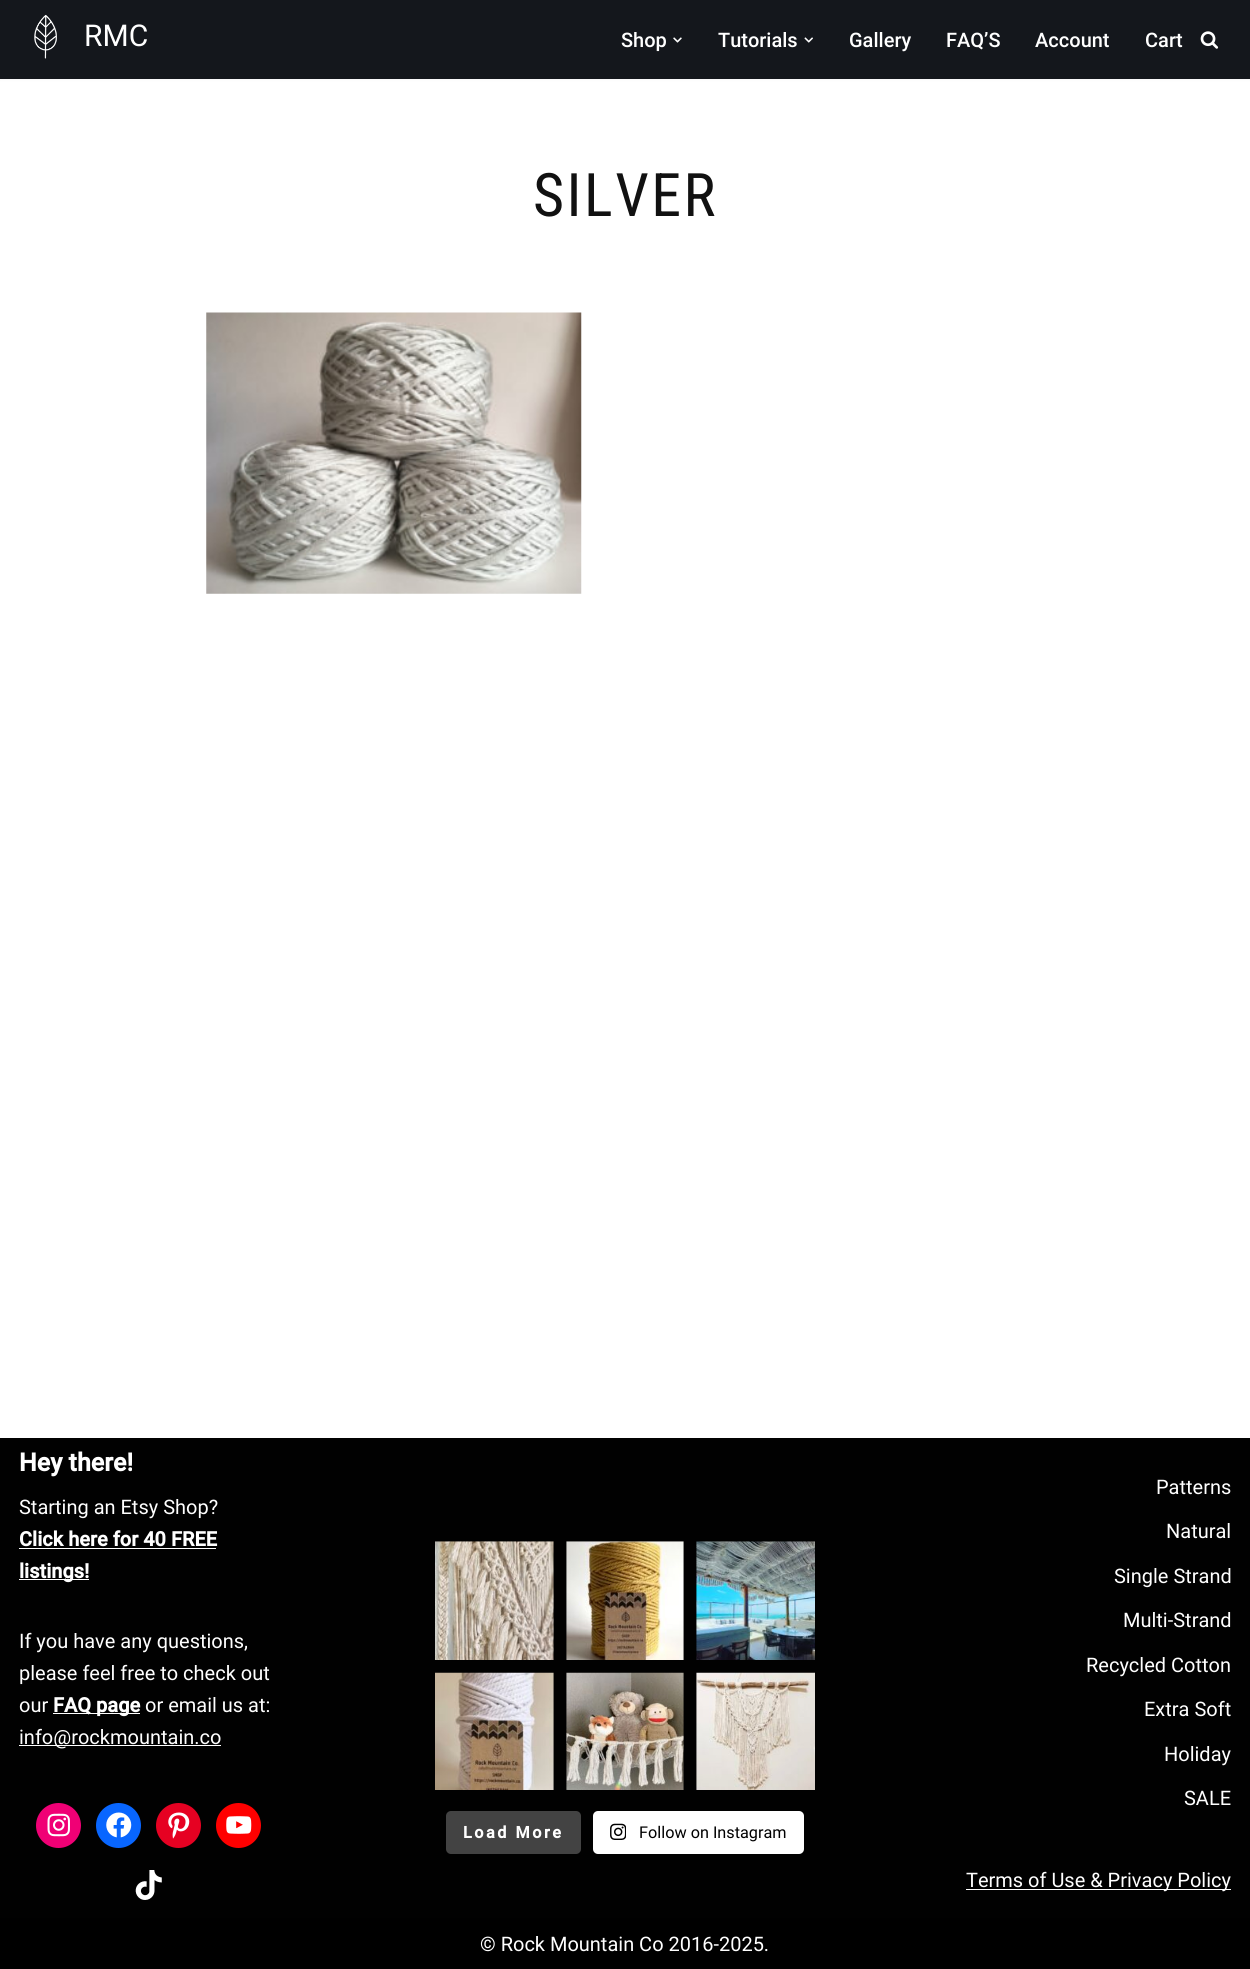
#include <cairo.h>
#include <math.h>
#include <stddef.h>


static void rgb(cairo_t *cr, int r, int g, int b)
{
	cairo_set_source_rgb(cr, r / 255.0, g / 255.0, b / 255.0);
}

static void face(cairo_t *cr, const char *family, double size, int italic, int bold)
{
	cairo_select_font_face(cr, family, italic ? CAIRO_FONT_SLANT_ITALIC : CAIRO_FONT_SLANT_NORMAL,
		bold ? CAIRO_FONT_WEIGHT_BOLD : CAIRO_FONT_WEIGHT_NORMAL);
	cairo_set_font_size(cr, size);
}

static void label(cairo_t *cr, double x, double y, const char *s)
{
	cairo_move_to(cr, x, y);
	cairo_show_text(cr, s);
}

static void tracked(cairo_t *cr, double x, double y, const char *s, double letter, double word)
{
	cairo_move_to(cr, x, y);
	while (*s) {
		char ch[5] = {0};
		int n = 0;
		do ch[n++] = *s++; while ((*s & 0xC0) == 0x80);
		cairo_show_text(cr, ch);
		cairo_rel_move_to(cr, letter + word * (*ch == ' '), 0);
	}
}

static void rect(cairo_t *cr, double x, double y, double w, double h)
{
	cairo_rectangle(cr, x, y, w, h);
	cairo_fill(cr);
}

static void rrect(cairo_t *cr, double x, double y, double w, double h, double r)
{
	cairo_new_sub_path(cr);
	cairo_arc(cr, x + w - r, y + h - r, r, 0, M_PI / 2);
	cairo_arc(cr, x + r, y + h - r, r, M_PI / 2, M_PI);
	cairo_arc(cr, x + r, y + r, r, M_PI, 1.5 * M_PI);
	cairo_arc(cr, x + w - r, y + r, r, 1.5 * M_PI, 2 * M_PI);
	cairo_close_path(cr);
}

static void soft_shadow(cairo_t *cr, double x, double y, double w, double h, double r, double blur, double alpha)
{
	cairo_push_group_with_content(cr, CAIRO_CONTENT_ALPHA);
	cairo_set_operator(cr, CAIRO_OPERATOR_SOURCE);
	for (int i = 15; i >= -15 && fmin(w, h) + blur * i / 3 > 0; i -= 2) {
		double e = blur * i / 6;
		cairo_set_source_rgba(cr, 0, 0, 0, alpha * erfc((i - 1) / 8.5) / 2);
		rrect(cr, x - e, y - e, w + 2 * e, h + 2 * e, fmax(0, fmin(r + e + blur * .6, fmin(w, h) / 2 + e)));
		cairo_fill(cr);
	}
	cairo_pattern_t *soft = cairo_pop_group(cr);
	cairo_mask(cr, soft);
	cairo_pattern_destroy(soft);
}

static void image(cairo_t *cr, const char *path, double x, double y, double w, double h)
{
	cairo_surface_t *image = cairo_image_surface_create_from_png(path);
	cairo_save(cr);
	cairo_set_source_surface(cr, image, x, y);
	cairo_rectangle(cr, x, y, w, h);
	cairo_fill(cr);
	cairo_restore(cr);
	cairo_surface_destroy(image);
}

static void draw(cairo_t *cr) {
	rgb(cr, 255, 255, 255);
	cairo_paint(cr);
	rgb(cr, 0, 0, 0);
	soft_shadow(cr, 0, -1, 1250, 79, 0, 2, 0.1);
	rgb(cr, 20, 23, 28);
	rect(cr, 0, 0, 1250, 79);
	image(cr, "image0.png", 34, 14, 23, 45);
	face(cr, "Roboto", 30, 0, 0);
	rgb(cr, 255, 255, 255);
	label(cr, 84, 46, "RMC");
	face(cr, "Roboto Medium", 20, 0, 0);
	label(cr, 621, 47, "Shop");
	image(cr, "image1.png", 673, 37, 9, 6);
	label(cr, 718, 47, "Tutorials");
	image(cr, "image2.png", 804, 37, 9, 6);
	label(cr, 849, 47, "Gallery");
	label(cr, 946, 47, "FAQ’S");
	label(cr, 1035, 47, "Account");
	label(cr, 1145, 47, "Cart");
	image(cr, "image3.png", 1200, 31, 19, 18);
	face(cr, "Roboto Condensed", 60, 0, 0);
	rgb(cr, 17, 17, 17);
	tracked(cr, 533, 216, "SILVER", 2.5, 0);
	image(cr, "image4.png", 206, 312, 376, 282);
	rgb(cr, 1, 1, 1);
	rect(cr, 0, 1438, 1250, 480);
	face(cr, "Roboto", 25, 0, 1);
	rgb(cr, 255, 255, 255);
	label(cr, 19, 1471, "Hey there!");
	face(cr, "Roboto", 20, 0, 0);
	label(cr, 19, 1514, "Starting an Etsy Shop?");
	face(cr, "Roboto", 20, 0, 1);
	label(cr, 19, 1546, "Click here for 40 FREE");
	rect(cr, 19, 1548, 197, 1);
	rect(cr, 19, 1579, 70, 1);
	label(cr, 19, 1578, "listings!");
	face(cr, "Roboto", 20, 0, 0);
	label(cr, 19, 1648, "If you have any questions,");
	label(cr, 19, 1680, "please feel free to check out");
	label(cr, 19, 1712, "our");
	rect(cr, 53, 1713, 87, 1);
	face(cr, "Roboto", 20, 0, 1);
	label(cr, 53, 1712, "FAQ page");
	face(cr, "Roboto", 20, 0, 0);
	label(cr, 145, 1712, "or email us at:");
	rect(cr, 19, 1745, 202, 1);
	label(cr, 19, 1744, "info@rockmountain.co");
	rgb(cr, 240, 0, 117);
	cairo_new_path(cr);
	cairo_arc(cr, 58.5, 1825.5, 22.5, 0, 2 * M_PI);
	cairo_fill(cr);
	image(cr, "image5.png", 47, 1813, 23, 24);
	rgb(cr, 8, 102, 255);
	cairo_arc(cr, 118.5, 1825.5, 22.5, 0, 2 * M_PI);
	cairo_fill(cr);
	image(cr, "image6.png", 106, 1812, 26, 26);
	rgb(cr, 230, 1, 34);
	cairo_arc(cr, 178.5, 1825.5, 22.5, 0, 2 * M_PI);
	cairo_fill(cr);
	image(cr, "image7.png", 168, 1812, 22, 27);
	rgb(cr, 255, 0, 0);
	cairo_arc(cr, 238.5, 1825.5, 22.5, 0, 2 * M_PI);
	cairo_fill(cr);
	image(cr, "image8.png", 226, 1816, 26, 18);
	image(cr, "image9.png", 135, 1870, 27, 30);
	image(cr, "image10.png", 435, 1541, 119, 119);
	image(cr, "image11.png", 566, 1541, 118, 119);
	image(cr, "image12.png", 696, 1541, 119, 119);
	image(cr, "image13.png", 435, 1672, 119, 118);
	image(cr, "image14.png", 566, 1672, 118, 118);
	image(cr, "image15.png", 696, 1672, 119, 118);
	rgb(cr, 67, 67, 67);
	rrect(cr, 446, 1811, 135, 43, 5);
	cairo_fill(cr);
	face(cr, "Roboto", 16.25, 0, 1);
	rgb(cr, 255, 255, 255);
	tracked(cr, 463, 1838, "Load More", 2.5, 0);
	rrect(cr, 593, 1811, 211, 43, 5);
	cairo_fill(cr);
	image(cr, "image16.png", 610, 1823, 16, 17);
	face(cr, "Roboto", 16.25, 0, 0);
	rgb(cr, 0, 0, 0);
	label(cr, 639, 1838, "Follow on Instagram");
	face(cr, "Roboto", 20, 0, 0);
	rgb(cr, 255, 255, 255);
	label(cr, 1156, 1494, "Patterns");
	label(cr, 1166, 1538, "Natural");
	label(cr, 1114, 1583, "Single Strand");
	label(cr, 1123, 1627, "Multi-Strand");
	label(cr, 1086, 1672, "Recycled Cotton");
	label(cr, 1144, 1716, "Extra Soft");
	label(cr, 1164, 1761, "Holiday");
	label(cr, 1184, 1805, "SALE");
	rect(cr, 966, 1889, 265, 1);
	label(cr, 966, 1887, "Terms of Use & Privacy Policy");
	rgb(cr, 0, 0, 0);
	rect(cr, 0, 1918, 1250, 51);
	rgb(cr, 255, 255, 255);
	label(cr, 480, 1951, "© Rock Mountain Co 2016-2025.");
}

int main(void) {
	cairo_surface_t *surface = cairo_image_surface_create(CAIRO_FORMAT_RGB24, 1250, 1969);
	cairo_t *cr = cairo_create(surface);
	cairo_font_options_t *options = cairo_font_options_create();
	cairo_font_options_set_hint_metrics(options, CAIRO_HINT_METRICS_OFF);
	cairo_font_options_set_hint_style(options, CAIRO_HINT_STYLE_NONE);
	cairo_set_font_options(cr, options);
	cairo_set_miter_limit(cr, 4);
	draw(cr);
	cairo_surface_write_to_png(surface, "render.png");
	cairo_font_options_destroy(options);
	cairo_destroy(cr);
	cairo_surface_destroy(surface);
	return 0;
}
